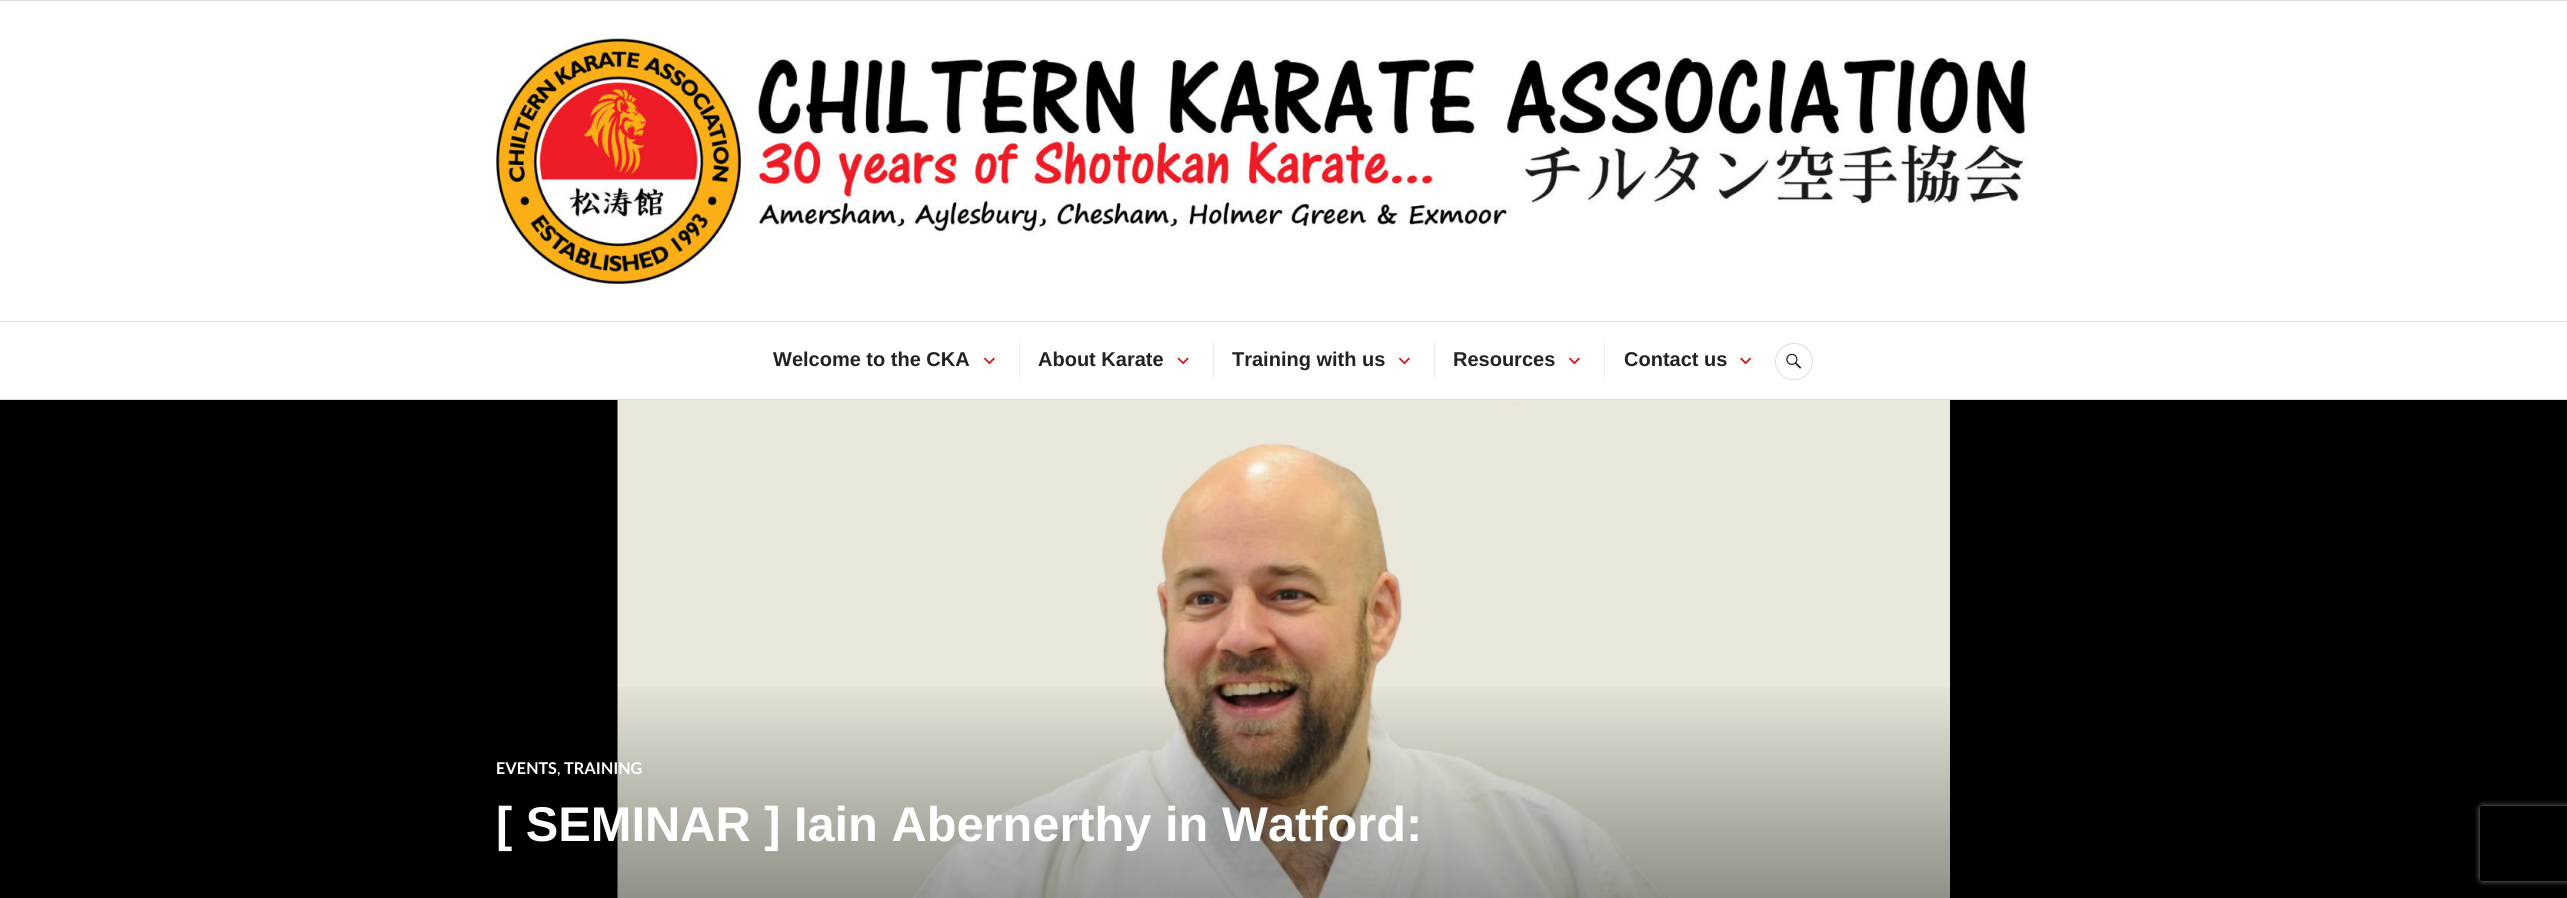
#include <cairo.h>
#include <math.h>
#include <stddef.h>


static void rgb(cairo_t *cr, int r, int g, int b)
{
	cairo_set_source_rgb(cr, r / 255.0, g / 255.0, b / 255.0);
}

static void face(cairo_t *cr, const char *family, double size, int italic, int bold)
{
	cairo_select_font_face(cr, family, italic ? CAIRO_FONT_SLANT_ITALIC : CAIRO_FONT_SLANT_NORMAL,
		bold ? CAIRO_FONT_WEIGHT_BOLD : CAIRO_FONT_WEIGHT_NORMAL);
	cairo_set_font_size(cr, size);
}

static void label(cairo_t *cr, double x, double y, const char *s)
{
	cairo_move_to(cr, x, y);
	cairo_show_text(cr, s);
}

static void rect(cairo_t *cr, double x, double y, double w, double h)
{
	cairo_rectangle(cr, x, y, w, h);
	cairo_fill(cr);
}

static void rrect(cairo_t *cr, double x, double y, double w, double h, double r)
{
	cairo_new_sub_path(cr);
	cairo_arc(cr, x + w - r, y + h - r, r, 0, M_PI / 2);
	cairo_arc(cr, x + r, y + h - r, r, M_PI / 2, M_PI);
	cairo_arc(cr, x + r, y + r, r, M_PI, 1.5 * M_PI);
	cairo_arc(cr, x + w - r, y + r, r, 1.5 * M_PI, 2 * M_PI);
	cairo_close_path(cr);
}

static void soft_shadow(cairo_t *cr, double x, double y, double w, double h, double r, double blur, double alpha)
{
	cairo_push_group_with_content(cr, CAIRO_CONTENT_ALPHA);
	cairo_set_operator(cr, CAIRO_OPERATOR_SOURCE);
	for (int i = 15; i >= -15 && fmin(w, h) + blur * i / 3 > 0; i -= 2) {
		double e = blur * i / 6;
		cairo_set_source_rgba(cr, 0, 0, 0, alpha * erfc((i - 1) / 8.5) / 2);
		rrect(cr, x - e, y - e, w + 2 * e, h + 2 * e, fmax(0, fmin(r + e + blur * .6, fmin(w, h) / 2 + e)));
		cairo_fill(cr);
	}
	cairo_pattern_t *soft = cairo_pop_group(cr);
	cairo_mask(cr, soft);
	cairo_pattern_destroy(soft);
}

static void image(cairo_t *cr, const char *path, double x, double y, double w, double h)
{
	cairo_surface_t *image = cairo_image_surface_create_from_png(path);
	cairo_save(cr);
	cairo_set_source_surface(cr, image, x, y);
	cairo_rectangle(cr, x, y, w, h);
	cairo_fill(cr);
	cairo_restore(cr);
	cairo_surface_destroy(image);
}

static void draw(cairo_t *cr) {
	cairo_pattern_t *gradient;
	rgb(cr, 255, 255, 255);
	cairo_paint(cr);
	rgb(cr, 221, 221, 221);
	rect(cr, 0, 399, 2567, 1);
	rect(cr, 0, 0, 2567, 1);
	image(cr, "image0.png", 496, 38, 1532, 246);
	rect(cr, 0, 321, 2567, 1);
	face(cr, "Liberation Sans", 20, 0, 1);
	rgb(cr, 34, 34, 34);
	label(cr, 773, 366, "Welcome to the CKA");
	image(cr, "image1.png", 983, 357, 12, 8);
	rgb(cr, 238, 238, 238);
	rect(cr, 1019, 341, 1, 38);
	rgb(cr, 34, 34, 34);
	label(cr, 1038, 366, "About Karate");
	image(cr, "image2.png", 1177, 357, 12, 8);
	rgb(cr, 238, 238, 238);
	rect(cr, 1213, 341, 1, 38);
	rgb(cr, 34, 34, 34);
	label(cr, 1232, 366, "Training with us");
	image(cr, "image1.png", 1398, 357, 12, 8);
	rgb(cr, 238, 238, 238);
	rect(cr, 1434, 341, 1, 38);
	rgb(cr, 34, 34, 34);
	label(cr, 1453, 366, "Resources");
	image(cr, "image1.png", 1568, 357, 12, 8);
	rgb(cr, 238, 238, 238);
	rect(cr, 1604, 341, 1, 38);
	rgb(cr, 34, 34, 34);
	label(cr, 1624, 366, "Contact us");
	image(cr, "image3.png", 1740, 357, 12, 8);
	rrect(cr, 1775.5, 343.5, 37, 36, 18);
	rgb(cr, 221, 221, 221);
	cairo_set_line_width(cr, 1);
	cairo_stroke(cr);
	image(cr, "image4.png", 1786, 353, 16, 16);
	rgb(cr, 0, 0, 0);
	rect(cr, 0, 400, 2567, 498);
	image(cr, "image5.png", 617, 400, 1333, 498);
	gradient = cairo_pattern_create_linear(1284, 674, 1284, 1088);
	cairo_pattern_add_color_stop_rgba(gradient, 0, 0, 0, 0, 0);
	cairo_pattern_add_color_stop_rgba(gradient, 1, 0, 0, 0, 0.7);
	cairo_set_source(cr, gradient);
	cairo_pattern_destroy(gradient);
	rect(cr, 617, 687, 1333, 211);
	face(cr, "Lato", 16.25, 0, 1);
	rgb(cr, 255, 255, 255);
	label(cr, 496, 774, "EVENTS");
	face(cr, "Lato", 16.25, 0, 0);
	label(cr, 557, 774, ",");
	face(cr, "Lato", 16.25, 0, 1);
	label(cr, 564, 774, "TRAINING");
	face(cr, "Liberation Sans", 48.75, 0, 1);
	label(cr, 496, 841, "[ SEMINAR ] Iain Abernerthy in Watford:");
	cairo_save(cr);
	cairo_set_fill_rule(cr, CAIRO_FILL_RULE_EVEN_ODD);
	cairo_new_path(cr);
	cairo_move_to(cr, 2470, 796);
	cairo_line_to(cr, 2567, 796);
	cairo_line_to(cr, 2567, 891);
	cairo_line_to(cr, 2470, 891);
	cairo_close_path(cr);
	cairo_move_to(cr, 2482.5, 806);
	cairo_line_to(cr, 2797.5, 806);
	cairo_curve_to(cr, 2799, 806, 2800, 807, 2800, 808.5);
	cairo_line_to(cr, 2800, 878.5);
	cairo_curve_to(cr, 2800, 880, 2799, 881, 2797.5, 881);
	cairo_line_to(cr, 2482.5, 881);
	cairo_curve_to(cr, 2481, 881, 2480, 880, 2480, 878.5);
	cairo_line_to(cr, 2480, 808.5);
	cairo_curve_to(cr, 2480, 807, 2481, 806, 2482.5, 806);
	cairo_close_path(cr);
	cairo_clip(cr);
	rgb(cr, 128, 128, 128);
	soft_shadow(cr, 2480, 806, 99, 75, 2.5, 3, 1);
	cairo_restore(cr);
}

int main(void) {
	cairo_surface_t *surface = cairo_image_surface_create(CAIRO_FORMAT_RGB24, 2567, 898);
	cairo_t *cr = cairo_create(surface);
	cairo_font_options_t *options = cairo_font_options_create();
	cairo_font_options_set_hint_metrics(options, CAIRO_HINT_METRICS_OFF);
	cairo_font_options_set_hint_style(options, CAIRO_HINT_STYLE_NONE);
	cairo_set_font_options(cr, options);
	cairo_set_miter_limit(cr, 4);
	draw(cr);
	cairo_surface_write_to_png(surface, "render.png");
	cairo_font_options_destroy(options);
	cairo_destroy(cr);
	cairo_surface_destroy(surface);
	return 0;
}
